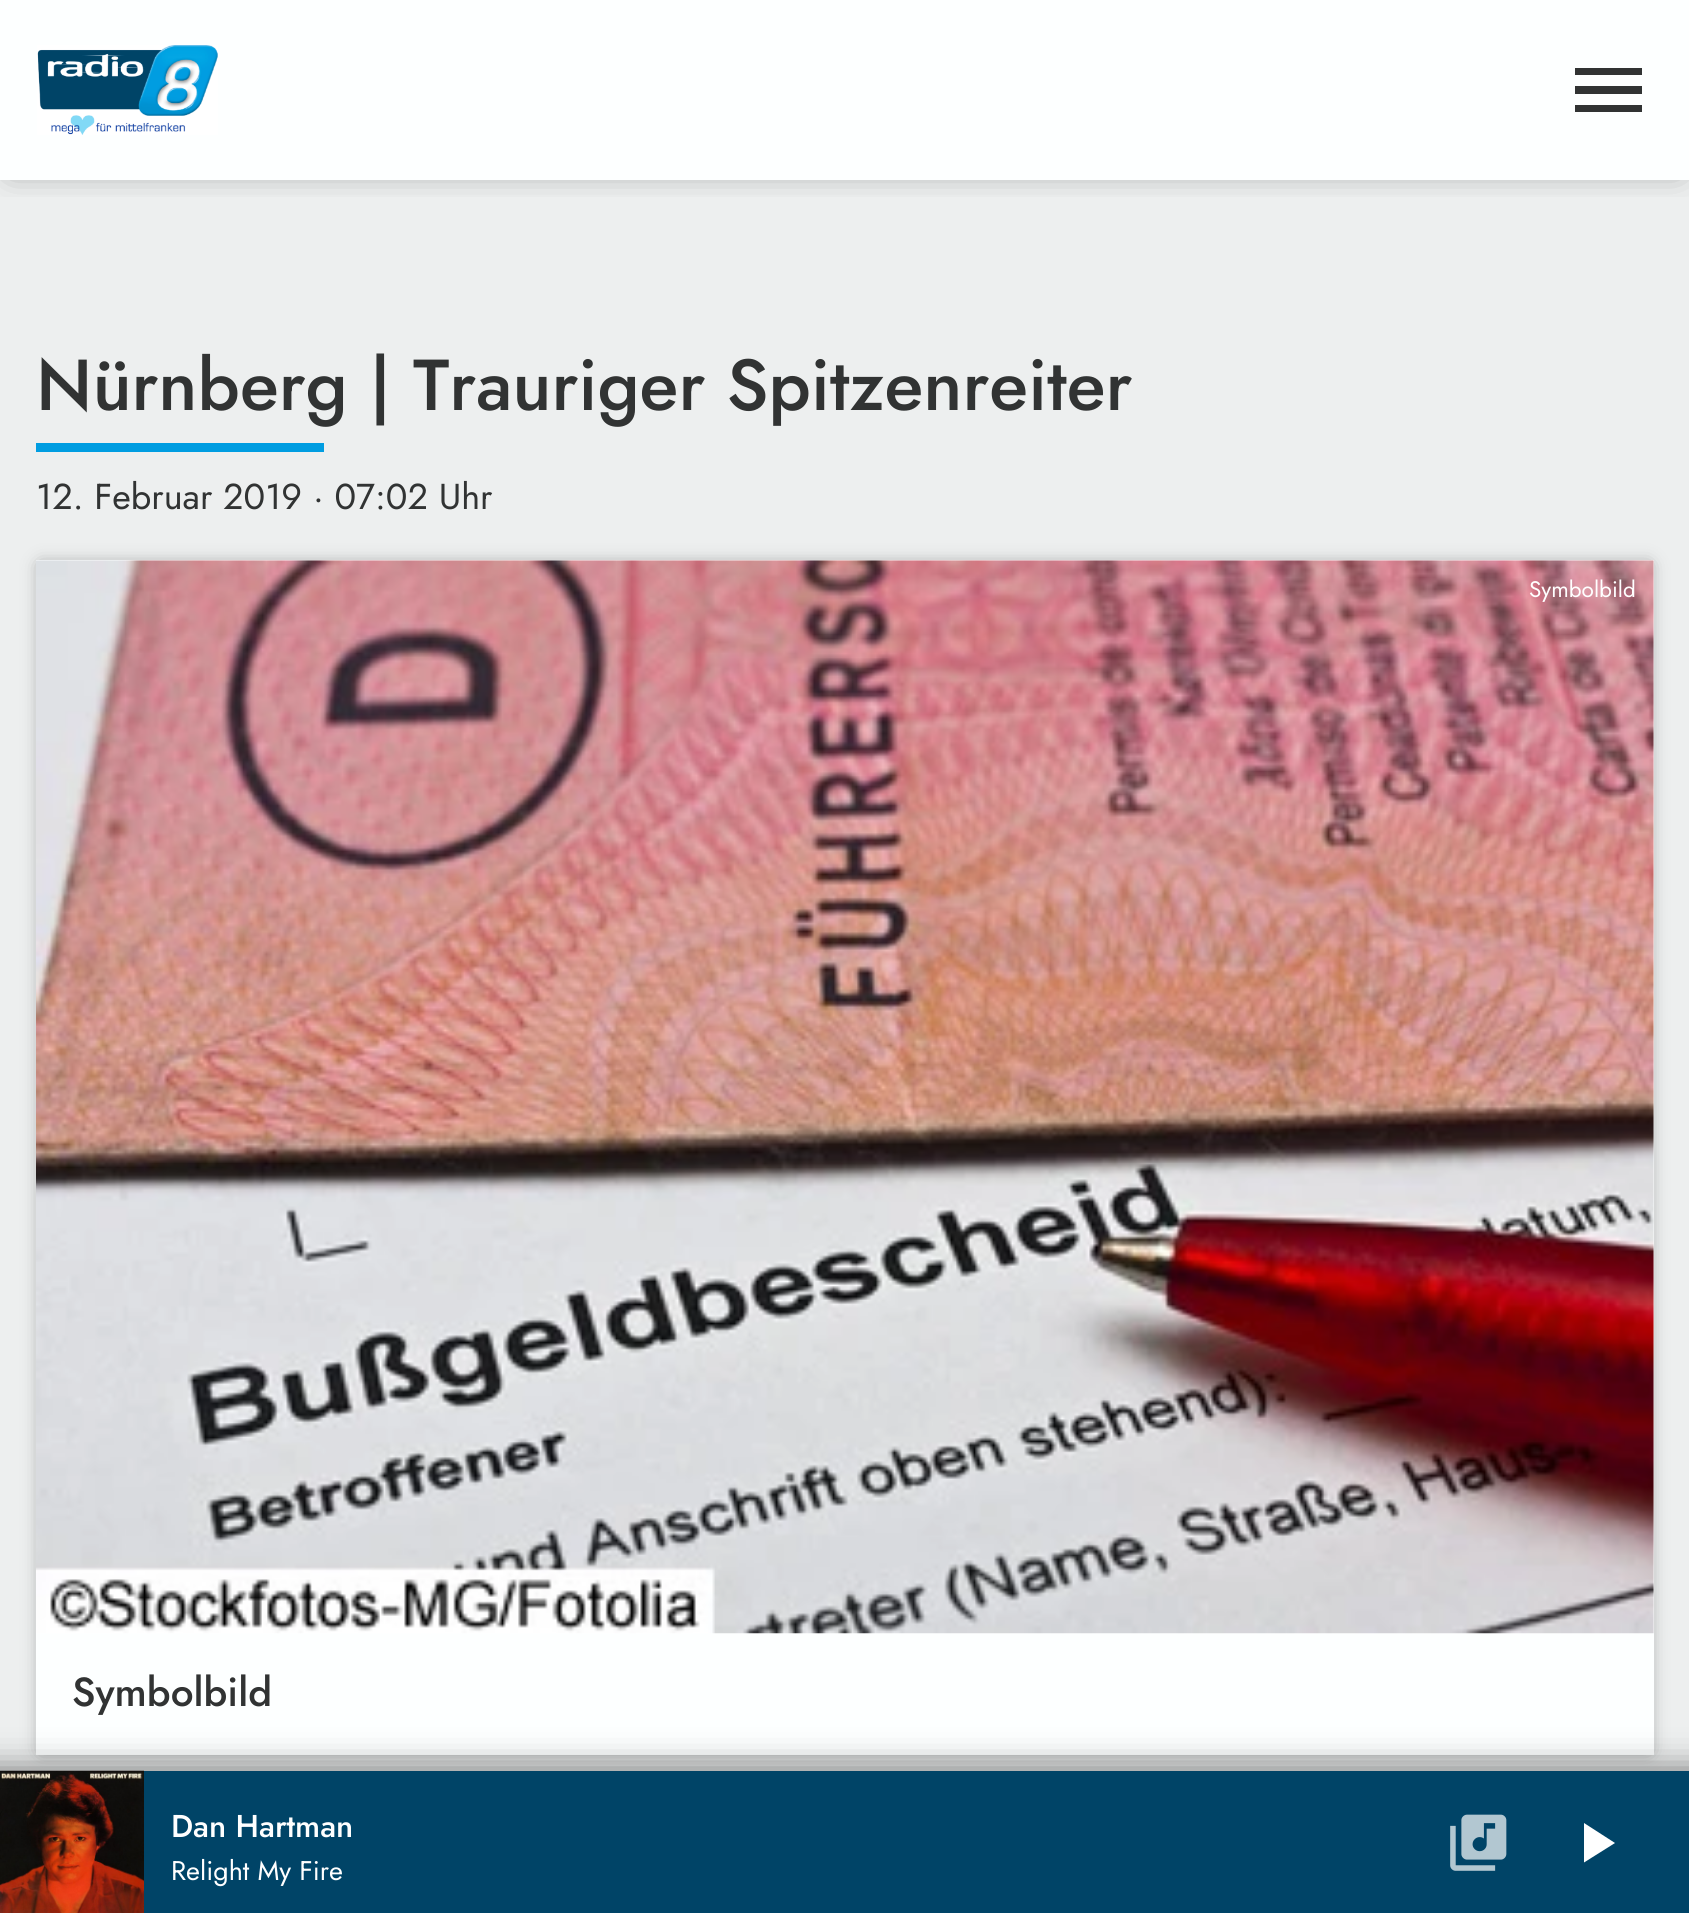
#include <cairo.h>
#include <math.h>
#include <stddef.h>


static void rgb(cairo_t *cr, int r, int g, int b)
{
	cairo_set_source_rgb(cr, r / 255.0, g / 255.0, b / 255.0);
}

static void face(cairo_t *cr, const char *family, double size, int italic, int bold)
{
	cairo_select_font_face(cr, family, italic ? CAIRO_FONT_SLANT_ITALIC : CAIRO_FONT_SLANT_NORMAL,
		bold ? CAIRO_FONT_WEIGHT_BOLD : CAIRO_FONT_WEIGHT_NORMAL);
	cairo_set_font_size(cr, size);
}

static void label(cairo_t *cr, double x, double y, const char *s)
{
	cairo_move_to(cr, x, y);
	cairo_show_text(cr, s);
}

static void rect(cairo_t *cr, double x, double y, double w, double h)
{
	cairo_rectangle(cr, x, y, w, h);
	cairo_fill(cr);
}

static void rrect(cairo_t *cr, double x, double y, double w, double h, double r)
{
	cairo_new_sub_path(cr);
	cairo_arc(cr, x + w - r, y + h - r, r, 0, M_PI / 2);
	cairo_arc(cr, x + r, y + h - r, r, M_PI / 2, M_PI);
	cairo_arc(cr, x + r, y + r, r, M_PI, 1.5 * M_PI);
	cairo_arc(cr, x + w - r, y + r, r, 1.5 * M_PI, 2 * M_PI);
	cairo_close_path(cr);
}

static void soft_shadow(cairo_t *cr, double x, double y, double w, double h, double r, double blur, double alpha)
{
	cairo_push_group_with_content(cr, CAIRO_CONTENT_ALPHA);
	cairo_set_operator(cr, CAIRO_OPERATOR_SOURCE);
	for (int i = 15; i >= -15 && fmin(w, h) + blur * i / 3 > 0; i -= 2) {
		double e = blur * i / 6;
		cairo_set_source_rgba(cr, 0, 0, 0, alpha * erfc((i - 1) / 8.5) / 2);
		rrect(cr, x - e, y - e, w + 2 * e, h + 2 * e, fmax(0, fmin(r + e + blur * .6, fmin(w, h) / 2 + e)));
		cairo_fill(cr);
	}
	cairo_pattern_t *soft = cairo_pop_group(cr);
	cairo_mask(cr, soft);
	cairo_pattern_destroy(soft);
}

static void image(cairo_t *cr, const char *path, double x, double y, double w, double h)
{
	cairo_surface_t *image = cairo_image_surface_create_from_png(path);
	cairo_save(cr);
	cairo_set_source_surface(cr, image, x, y);
	cairo_rectangle(cr, x, y, w, h);
	cairo_fill(cr);
	cairo_restore(cr);
	cairo_surface_destroy(image);
}

static void draw(cairo_t *cr) {
	rgb(cr, 253, 255, 255);
	cairo_paint(cr);
	rgb(cr, 237, 239, 239);
	rect(cr, 0, 180, 1689, 1591);
	cairo_save(cr);
	cairo_rectangle(cr, 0, 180, 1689, 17);
	cairo_clip(cr);
	rgb(cr, 0, 0, 0);
	soft_shadow(cr, 11, 11, 1668, 158, 0, 17, 0.4);
	cairo_restore(cr);
	image(cr, "image0.png", 37, 45, 181, 90);
	rgb(cr, 49, 51, 51);
	cairo_new_path(cr);
	cairo_move_to(cr, 1575, 68);
	cairo_line_to(cr, 1642, 68);
	cairo_line_to(cr, 1642, 75);
	cairo_line_to(cr, 1575, 75);
	cairo_close_path(cr);
	cairo_move_to(cr, 1575, 94);
	cairo_line_to(cr, 1575, 86);
	cairo_line_to(cr, 1642, 86);
	cairo_line_to(cr, 1642, 94);
	cairo_close_path(cr);
	cairo_move_to(cr, 1575, 112);
	cairo_line_to(cr, 1575, 105);
	cairo_line_to(cr, 1642, 105);
	cairo_line_to(cr, 1642, 112);
	cairo_close_path(cr);
	cairo_fill(cr);
	face(cr, "Jost Medium", 72, 0, 0);
	label(cr, 36, 410, "Nürnberg | Trauriger Spitzenreiter");
	rgb(cr, 0, 157, 225);
	rect(cr, 36, 443, 288, 9);
	face(cr, "Jost", 36, 0, 0);
	rgb(cr, 49, 51, 51);
	label(cr, 36, 509, "12. Februar 2019 · 07:02 Uhr");
	rgb(cr, 0, 0, 0);
	soft_shadow(cr, 41, 565, 1608, 1186, 0, 9, 0.4);
	rgb(cr, 253, 255, 255);
	rect(cr, 36, 560, 1618, 1195);
	image(cr, "image1.png", 36, 560, 1618, 1074);
	face(cr, "Jost", 22.5, 0, 0);
	rgb(cr, 255, 255, 255);
	label(cr, 1529, 597, "Symbolbild");
	face(cr, "Jost Medium", 40.5, 0, 0);
	rgb(cr, 49, 51, 51);
	label(cr, 72, 1706, "Symbolbild");
	rgb(cr, 0, 0, 0);
	soft_shadow(cr, -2, 1769, 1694, 5, 0, 17, 0.5);
	rgb(cr, 0, 68, 103);
	rect(cr, 144, 1771, 1545, 142);
	image(cr, "image2.png", 0, 1770, 144, 143);
	face(cr, "Jost Medium", 31.5, 0, 0);
	rgb(cr, 255, 255, 255);
	label(cr, 171, 1837, "Dan Hartman");
	face(cr, "Jost", 27, 0, 0);
	label(cr, 171, 1880, "Relight My Fire");
	image(cr, "image3.png", 1450, 1814, 57, 57);
	cairo_new_path(cr);
	cairo_move_to(cr, 1584, 1823);
	cairo_line_to(cr, 1615, 1843);
	cairo_line_to(cr, 1584, 1862.5);
	cairo_close_path(cr);
	cairo_fill(cr);
}

int main(void) {
	cairo_surface_t *surface = cairo_image_surface_create(CAIRO_FORMAT_RGB24, 1689, 1913);
	cairo_t *cr = cairo_create(surface);
	cairo_font_options_t *options = cairo_font_options_create();
	cairo_font_options_set_hint_metrics(options, CAIRO_HINT_METRICS_OFF);
	cairo_font_options_set_hint_style(options, CAIRO_HINT_STYLE_NONE);
	cairo_set_font_options(cr, options);
	cairo_set_miter_limit(cr, 4);
	draw(cr);
	cairo_surface_write_to_png(surface, "render.png");
	cairo_font_options_destroy(options);
	cairo_destroy(cr);
	cairo_surface_destroy(surface);
	return 0;
}
